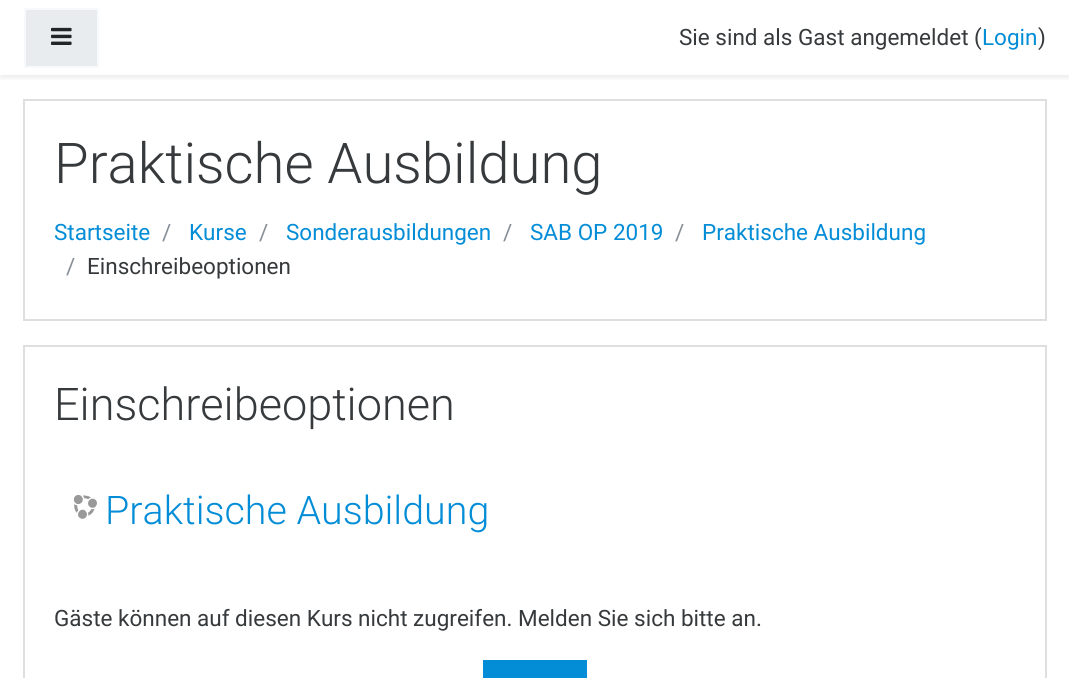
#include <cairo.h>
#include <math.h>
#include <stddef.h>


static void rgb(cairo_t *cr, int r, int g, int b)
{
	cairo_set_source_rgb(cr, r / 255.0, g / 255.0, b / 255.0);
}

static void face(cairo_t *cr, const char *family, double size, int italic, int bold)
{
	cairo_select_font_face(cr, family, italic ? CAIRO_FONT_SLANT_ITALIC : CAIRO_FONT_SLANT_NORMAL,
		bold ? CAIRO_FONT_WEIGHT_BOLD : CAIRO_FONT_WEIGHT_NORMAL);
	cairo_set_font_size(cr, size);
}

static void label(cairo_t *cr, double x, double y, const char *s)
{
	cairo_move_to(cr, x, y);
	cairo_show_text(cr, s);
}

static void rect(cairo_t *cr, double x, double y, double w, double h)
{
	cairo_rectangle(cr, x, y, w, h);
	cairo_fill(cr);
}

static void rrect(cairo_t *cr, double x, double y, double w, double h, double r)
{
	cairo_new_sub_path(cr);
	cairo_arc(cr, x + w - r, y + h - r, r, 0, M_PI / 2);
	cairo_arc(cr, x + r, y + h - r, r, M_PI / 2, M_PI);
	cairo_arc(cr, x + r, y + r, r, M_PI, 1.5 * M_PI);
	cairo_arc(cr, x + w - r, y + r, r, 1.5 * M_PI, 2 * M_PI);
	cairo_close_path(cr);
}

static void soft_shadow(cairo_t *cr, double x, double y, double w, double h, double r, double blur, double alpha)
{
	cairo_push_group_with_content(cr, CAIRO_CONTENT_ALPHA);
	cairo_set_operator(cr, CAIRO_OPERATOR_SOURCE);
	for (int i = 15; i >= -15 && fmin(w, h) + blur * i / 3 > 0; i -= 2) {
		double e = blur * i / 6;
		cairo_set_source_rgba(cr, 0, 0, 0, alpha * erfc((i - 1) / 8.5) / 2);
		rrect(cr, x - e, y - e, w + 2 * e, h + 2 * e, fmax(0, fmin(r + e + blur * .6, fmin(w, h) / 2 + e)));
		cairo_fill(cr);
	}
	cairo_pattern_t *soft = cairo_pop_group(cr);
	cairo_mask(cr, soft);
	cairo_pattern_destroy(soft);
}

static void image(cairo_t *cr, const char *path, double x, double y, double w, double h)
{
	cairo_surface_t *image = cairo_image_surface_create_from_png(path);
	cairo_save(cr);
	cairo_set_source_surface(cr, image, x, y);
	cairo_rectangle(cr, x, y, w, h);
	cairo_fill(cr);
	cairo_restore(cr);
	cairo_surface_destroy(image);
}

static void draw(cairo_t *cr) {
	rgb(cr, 255, 255, 255);
	cairo_paint(cr);
	cairo_save(cr);
	cairo_rectangle(cr, 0, 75, 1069, 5);
	cairo_clip(cr);
	rgb(cr, 0, 0, 0);
	soft_shadow(cr, 0, 3, 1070, 75, 0, 3, 0.08);
	cairo_restore(cr);
	rgb(cr, 233, 236, 239);
	cairo_rectangle(cr, 25, 9, 73, 58);
	cairo_fill_preserve(cr);
	rgb(cr, 248, 249, 250);
	cairo_stroke(cr);
	image(cr, "image0.png", 51, 27, 21, 18);
	face(cr, "Roboto", 22.5, 0, 0);
	rgb(cr, 55, 58, 60);
	label(cr, 679, 45, "Sie sind als Gast angemeldet (");
	rgb(cr, 4, 141, 215);
	label(cr, 982, 45, "Login");
	rgb(cr, 55, 58, 60);
	label(cr, 1038, 45, ")");
	cairo_rectangle(cr, 24, 100, 1022, 220);
	rgb(cr, 223, 223, 223);
	cairo_stroke(cr);
	face(cr, "Roboto Light", 56.25, 0, 0);
	rgb(cr, 55, 58, 60);
	label(cr, 54, 183, "Praktische Ausbildung");
	face(cr, "Roboto", 22.5, 0, 0);
	rgb(cr, 4, 141, 215);
	label(cr, 54, 240, "Startseite");
	rgb(cr, 134, 142, 150);
	label(cr, 162, 240, "/");
	rgb(cr, 4, 141, 215);
	label(cr, 189, 240, "Kurse");
	rgb(cr, 134, 142, 150);
	label(cr, 259, 240, "/");
	rgb(cr, 4, 141, 215);
	label(cr, 286, 240, "Sonderausbildungen");
	rgb(cr, 134, 142, 150);
	label(cr, 503, 240, "/");
	rgb(cr, 4, 141, 215);
	label(cr, 530, 240, "SAB OP 2019");
	rgb(cr, 134, 142, 150);
	label(cr, 675, 240, "/");
	rgb(cr, 4, 141, 215);
	label(cr, 702, 240, "Praktische Ausbildung");
	rgb(cr, 134, 142, 150);
	label(cr, 66, 274, "/");
	rgb(cr, 55, 58, 60);
	label(cr, 87, 274, "Einschreibeoptionen");
	cairo_rectangle(cr, 24, 346, 1022, 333);
	rgb(cr, 223, 223, 223);
	cairo_stroke(cr);
	face(cr, "Roboto Light", 45, 0, 0);
	rgb(cr, 55, 58, 60);
	label(cr, 54, 420, "Einschreibeoptionen");
	image(cr, "image1.png", 74, 495, 23, 24);
	face(cr, "Roboto Light", 39.4, 0, 0);
	rgb(cr, 4, 141, 215);
	label(cr, 105, 524, "Praktische Ausbildung");
	face(cr, "Roboto", 22.5, 0, 0);
	rgb(cr, 55, 58, 60);
	label(cr, 54, 626, "Gäste können auf diesen Kurs nicht zugreifen. Melden Sie sich bitte an.");
	rgb(cr, 4, 141, 215);
	rect(cr, 483, 660, 104, 18);
}

int main(void) {
	cairo_surface_t *surface = cairo_image_surface_create(CAIRO_FORMAT_RGB24, 1069, 678);
	cairo_t *cr = cairo_create(surface);
	cairo_font_options_t *options = cairo_font_options_create();
	cairo_font_options_set_hint_metrics(options, CAIRO_HINT_METRICS_OFF);
	cairo_font_options_set_hint_style(options, CAIRO_HINT_STYLE_NONE);
	cairo_set_font_options(cr, options);
	cairo_set_miter_limit(cr, 4);
	draw(cr);
	cairo_surface_write_to_png(surface, "render.png");
	cairo_font_options_destroy(options);
	cairo_destroy(cr);
	cairo_surface_destroy(surface);
	return 0;
}
